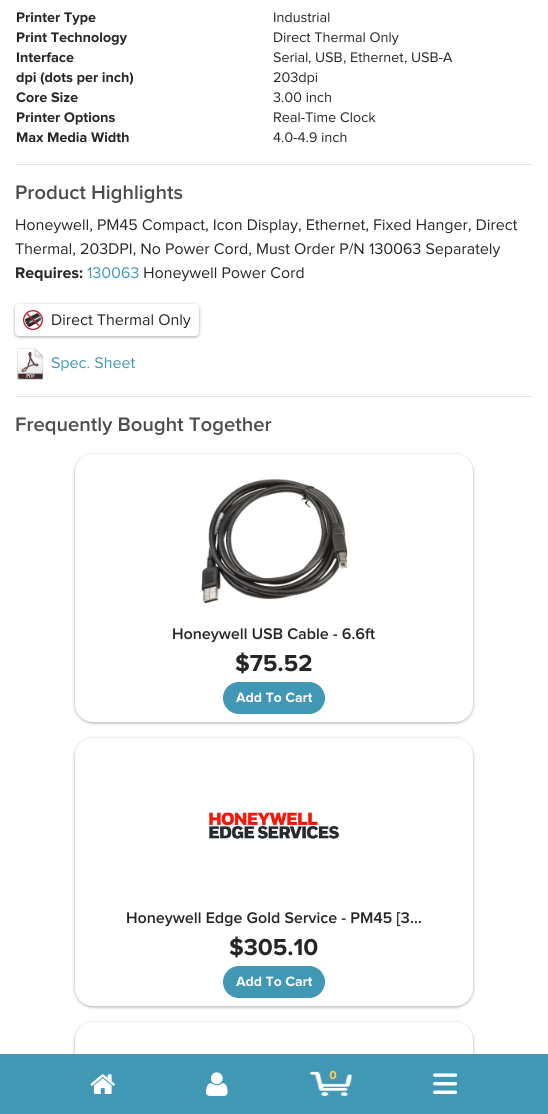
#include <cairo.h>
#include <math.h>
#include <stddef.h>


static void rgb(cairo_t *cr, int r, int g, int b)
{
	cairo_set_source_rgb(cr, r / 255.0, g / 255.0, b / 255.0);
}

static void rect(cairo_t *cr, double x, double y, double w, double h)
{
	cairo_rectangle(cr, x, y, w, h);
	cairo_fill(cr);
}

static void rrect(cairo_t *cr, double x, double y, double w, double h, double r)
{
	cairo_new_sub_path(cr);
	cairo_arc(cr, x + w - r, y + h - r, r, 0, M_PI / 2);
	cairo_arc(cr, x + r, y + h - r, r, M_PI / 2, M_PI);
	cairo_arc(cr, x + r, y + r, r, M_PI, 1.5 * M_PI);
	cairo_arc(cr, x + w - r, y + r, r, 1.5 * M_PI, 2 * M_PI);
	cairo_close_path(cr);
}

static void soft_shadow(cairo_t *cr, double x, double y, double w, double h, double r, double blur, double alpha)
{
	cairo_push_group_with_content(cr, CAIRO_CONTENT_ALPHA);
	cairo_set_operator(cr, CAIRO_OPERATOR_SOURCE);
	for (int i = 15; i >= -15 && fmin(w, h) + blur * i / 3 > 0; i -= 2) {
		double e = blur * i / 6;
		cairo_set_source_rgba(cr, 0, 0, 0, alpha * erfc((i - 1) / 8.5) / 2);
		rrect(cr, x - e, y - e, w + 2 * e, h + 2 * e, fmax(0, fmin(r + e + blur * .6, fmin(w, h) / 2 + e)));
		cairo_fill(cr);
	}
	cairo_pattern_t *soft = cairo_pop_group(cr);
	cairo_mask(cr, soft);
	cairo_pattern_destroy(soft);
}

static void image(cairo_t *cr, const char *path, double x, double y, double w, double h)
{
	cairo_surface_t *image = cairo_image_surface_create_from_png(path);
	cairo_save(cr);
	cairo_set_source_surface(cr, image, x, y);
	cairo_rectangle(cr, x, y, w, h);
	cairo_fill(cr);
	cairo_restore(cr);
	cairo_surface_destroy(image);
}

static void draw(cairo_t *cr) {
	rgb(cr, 255, 255, 255);
	cairo_paint(cr);
	image(cr, "image0.png", 16, 12, 80, 13);
	image(cr, "image1.png", 274, 12, 56, 11);
	image(cr, "image2.png", 16, 32, 111, 13);
	image(cr, "image3.png", 274, 32, 125, 13);
	image(cr, "image4.png", 16, 52, 58, 11);
	image(cr, "image5.png", 273, 52, 35, 11);
	image(cr, "image6.png", 308, 60, 3, 4);
	image(cr, "image7.png", 316, 52, 26, 11);
	image(cr, "image6.png", 343, 60, 3, 4);
	image(cr, "image8.png", 351, 52, 53, 11);
	image(cr, "image6.png", 404, 60, 3, 4);
	image(cr, "image9.png", 412, 52, 41, 11);
	image(cr, "image10.png", 16, 72, 118, 13);
	image(cr, "image11.png", 273, 72, 45, 13);
	image(cr, "image12.png", 16, 92, 62, 11);
	image(cr, "image13.png", 273, 92, 58, 11);
	image(cr, "image14.png", 16, 112, 99, 13);
	image(cr, "image15.png", 274, 112, 102, 11);
	image(cr, "image16.png", 16, 132, 113, 11);
	image(cr, "image17.png", 273, 132, 74, 11);
	rgb(cr, 230, 230, 230);
	rect(cr, 15, 164, 518, 1);
	image(cr, "image18.png", 16, 185, 167, 18);
	image(cr, "image19.png", 16, 219, 502, 15);
	image(cr, "image20.png", 15, 243, 349, 13);
	image(cr, "image21.png", 369, 243, 132, 15);
	image(cr, "image22.png", 16, 267, 67, 14);
	image(cr, "image23.png", 87, 267, 52, 12);
	image(cr, "image24.png", 144, 267, 160, 15);
	cairo_save(cr);
	cairo_set_fill_rule(cr, CAIRO_FILL_RULE_EVEN_ODD);
	cairo_new_path(cr);
	cairo_move_to(cr, 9, 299);
	cairo_line_to(cr, 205, 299);
	cairo_line_to(cr, 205, 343);
	cairo_line_to(cr, 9, 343);
	cairo_close_path(cr);
	cairo_move_to(cr, 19, 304);
	cairo_line_to(cr, 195, 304);
	cairo_curve_to(cr, 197, 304, 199, 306, 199, 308);
	cairo_line_to(cr, 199, 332);
	cairo_curve_to(cr, 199, 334, 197, 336, 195, 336);
	cairo_line_to(cr, 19, 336);
	cairo_curve_to(cr, 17, 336, 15, 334, 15, 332);
	cairo_line_to(cr, 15, 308);
	cairo_curve_to(cr, 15, 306, 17, 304, 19, 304);
	cairo_close_path(cr);
	cairo_clip(cr);
	rgb(cr, 0, 0, 0);
	soft_shadow(cr, 15, 305, 184, 32, 4, 1.5, 0.24);
	cairo_restore(cr);
	cairo_save(cr);
	cairo_set_fill_rule(cr, CAIRO_FILL_RULE_EVEN_ODD);
	cairo_new_path(cr);
	cairo_move_to(cr, 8, 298);
	cairo_line_to(cr, 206, 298);
	cairo_line_to(cr, 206, 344);
	cairo_line_to(cr, 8, 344);
	cairo_close_path(cr);
	cairo_move_to(cr, 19, 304);
	cairo_line_to(cr, 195, 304);
	cairo_curve_to(cr, 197, 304, 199, 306, 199, 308);
	cairo_line_to(cr, 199, 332);
	cairo_curve_to(cr, 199, 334, 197, 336, 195, 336);
	cairo_line_to(cr, 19, 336);
	cairo_curve_to(cr, 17, 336, 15, 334, 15, 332);
	cairo_line_to(cr, 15, 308);
	cairo_curve_to(cr, 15, 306, 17, 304, 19, 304);
	cairo_close_path(cr);
	cairo_clip(cr);
	rgb(cr, 0, 0, 0);
	soft_shadow(cr, 15, 305, 184, 32, 4, 2, 0.12);
	cairo_restore(cr);
	image(cr, "image25.png", 23, 310, 20, 20);
	image(cr, "image26.png", 52, 314, 139, 15);
	image(cr, "image27.png", 17, 348, 27, 32);
	image(cr, "image28.png", 51, 357, 85, 14);
	rect(cr, 15, 396, 518, 1);
	image(cr, "image29.png", 16, 417, 256, 18);
	rgb(cr, 0, 0, 0);
	soft_shadow(cr, 75, 455, 398, 268, 18, 1.5, 0.24);
	soft_shadow(cr, 75, 455, 398, 268, 18, 2, 0.12);
	rgb(cr, 255, 255, 255);
	rrect(cr, 75, 454, 398, 268, 18);
	cairo_fill(cr);
	image(cr, "image30.png", 201, 478, 147, 126);
	image(cr, "image31.png", 173, 628, 202, 15);
	image(cr, "image32.png", 235, 652, 77, 22);
	rgb(cr, 65, 152, 181);
	rrect(cr, 223.5, 682.5, 101, 31, 15.5);
	cairo_fill_preserve(cr);
	cairo_set_line_width(cr, 1);
	cairo_stroke(cr);
	image(cr, "image33.png", 236, 692, 77, 11);
	rgb(cr, 0, 0, 0);
	soft_shadow(cr, 75, 739, 398, 268, 18, 1.5, 0.24);
	soft_shadow(cr, 75, 739, 398, 268, 18, 2, 0.12);
	rgb(cr, 255, 255, 255);
	rrect(cr, 75, 738, 398, 268, 18);
	cairo_fill(cr);
	image(cr, "image34.png", 209, 812, 131, 27);
	image(cr, "image35.png", 127, 912, 282, 15);
	image(cr, "image36.png", 410, 921, 11, 3);
	image(cr, "image37.png", 229, 936, 89, 22);
	rgb(cr, 65, 152, 181);
	rrect(cr, 223.5, 966.5, 101, 31, 15.5);
	cairo_fill_preserve(cr);
	cairo_stroke(cr);
	image(cr, "image33.png", 236, 976, 77, 11);
	rgb(cr, 0, 0, 0);
	soft_shadow(cr, 75, 1023, 398, 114, 18, 1.5, 0.24);
	soft_shadow(cr, 75, 1023, 398, 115, 18, 2, 0.12);
	rgb(cr, 255, 255, 255);
	rrect(cr, 75, 1022, 398, 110, 18);
	cairo_fill(cr);
	rgb(cr, 65, 152, 181);
	rect(cr, 0, 1054, 548, 60);
	image(cr, "image38.png", 90, 1074, 26, 20);
	image(cr, "image39.png", 206, 1072, 22, 24);
	image(cr, "image41.png", 310, 1071, 43, 25);
	image(cr, "image40.png", 329, 1070, 8, 10);
	image(cr, "image42.png", 433, 1073, 24, 21);
}

int main(void) {
	cairo_surface_t *surface = cairo_image_surface_create(CAIRO_FORMAT_RGB24, 548, 1114);
	cairo_t *cr = cairo_create(surface);
	cairo_font_options_t *options = cairo_font_options_create();
	cairo_font_options_set_hint_metrics(options, CAIRO_HINT_METRICS_OFF);
	cairo_font_options_set_hint_style(options, CAIRO_HINT_STYLE_NONE);
	cairo_set_font_options(cr, options);
	cairo_set_miter_limit(cr, 4);
	draw(cr);
	cairo_surface_write_to_png(surface, "render.png");
	cairo_font_options_destroy(options);
	cairo_destroy(cr);
	cairo_surface_destroy(surface);
	return 0;
}
